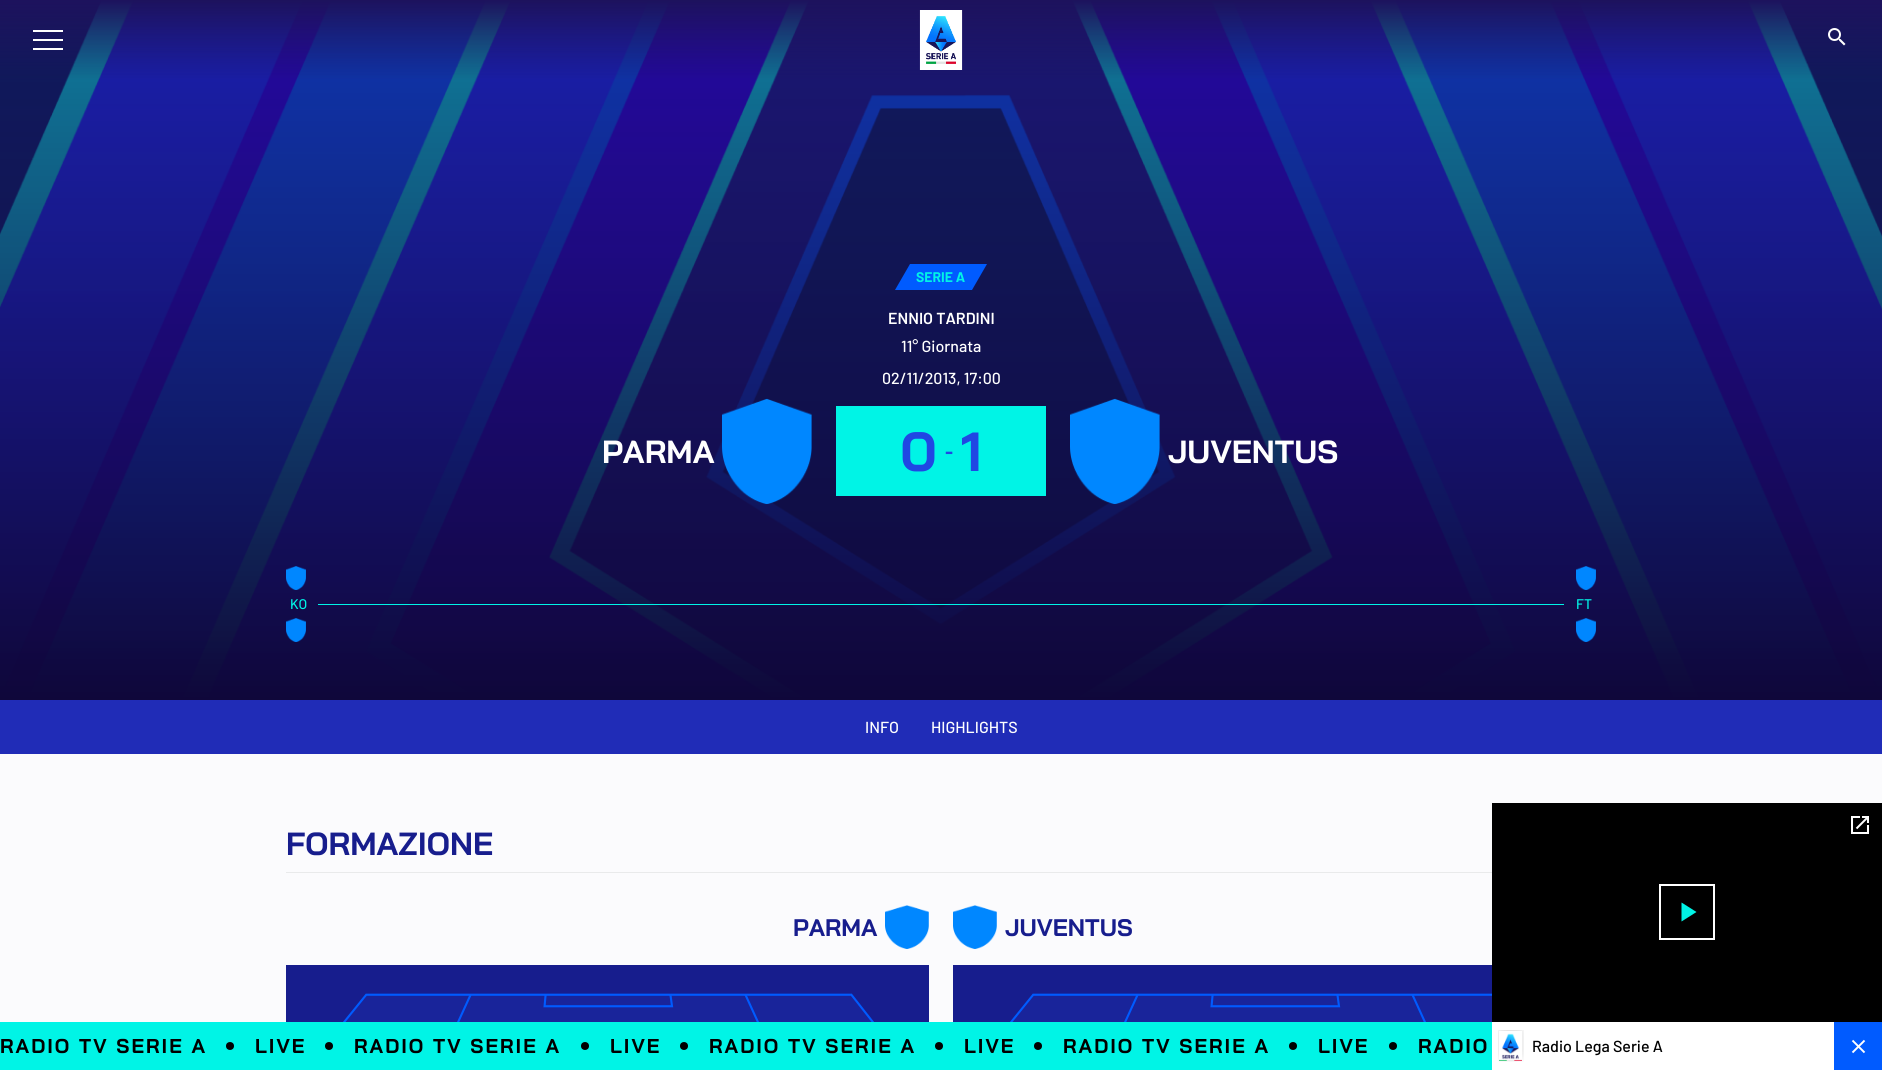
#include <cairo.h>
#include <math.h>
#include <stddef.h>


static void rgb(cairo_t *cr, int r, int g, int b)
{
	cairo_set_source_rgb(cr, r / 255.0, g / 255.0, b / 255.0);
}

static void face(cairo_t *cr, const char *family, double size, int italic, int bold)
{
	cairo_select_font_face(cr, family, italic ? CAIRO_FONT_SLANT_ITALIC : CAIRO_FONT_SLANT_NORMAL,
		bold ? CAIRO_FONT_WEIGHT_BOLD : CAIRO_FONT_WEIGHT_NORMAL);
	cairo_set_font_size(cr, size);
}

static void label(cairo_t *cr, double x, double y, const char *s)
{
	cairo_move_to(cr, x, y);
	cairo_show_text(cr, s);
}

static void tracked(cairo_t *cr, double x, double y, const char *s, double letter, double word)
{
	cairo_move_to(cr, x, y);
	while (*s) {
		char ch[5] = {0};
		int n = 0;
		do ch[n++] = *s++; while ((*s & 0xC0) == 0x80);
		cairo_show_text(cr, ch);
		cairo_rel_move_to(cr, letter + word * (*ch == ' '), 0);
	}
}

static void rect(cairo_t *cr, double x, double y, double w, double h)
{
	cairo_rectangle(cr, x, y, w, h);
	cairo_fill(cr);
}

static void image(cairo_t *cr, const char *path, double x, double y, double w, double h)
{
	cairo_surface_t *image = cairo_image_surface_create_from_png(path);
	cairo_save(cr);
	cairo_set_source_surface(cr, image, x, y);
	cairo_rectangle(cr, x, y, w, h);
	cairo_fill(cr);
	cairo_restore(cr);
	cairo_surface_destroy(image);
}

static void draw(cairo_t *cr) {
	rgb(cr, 251, 251, 253);
	cairo_paint(cr);
	image(cr, "image2.png", 0, 0, 1882, 700);
	rgb(cr, 255, 255, 255);
	rect(cr, 33, 30, 30, 2);
	rect(cr, 33, 39, 30, 2);
	rect(cr, 33, 48, 30, 2);
	image(cr, "image0.png", 919, 10, 44, 60);
	image(cr, "image1.png", 1828, 28, 18, 18);
	rgb(cr, 0, 91, 255);
	cairo_new_path(cr);
	cairo_move_to(cr, 910, 264);
	cairo_line_to(cr, 987, 264);
	cairo_line_to(cr, 972, 290);
	cairo_line_to(cr, 895, 290);
	cairo_close_path(cr);
	cairo_fill(cr);
	face(cr, "Barlow", 14, 0, 1);
	rgb(cr, 0, 244, 230);
	label(cr, 916, 282, "SERIE A");
	face(cr, "Barlow SemiBold", 16, 0, 0);
	rgb(cr, 255, 255, 255);
	label(cr, 888, 324, "ENNIO TARDINI");
	face(cr, "Barlow Medium", 16, 0, 0);
	label(cr, 901, 352, "11° Giornata");
	label(cr, 882, 384, "02/11/2013, 17:00");
	face(cr, "Bai Jamjuree", 32, 0, 1);
	label(cr, 602, 463, "PARMA");
	image(cr, "image3.png", 722, 398, 90, 106);
	rgb(cr, 0, 244, 230);
	rect(cr, 836, 406, 210, 90);
	face(cr, "Bai Jamjuree", 55, 0, 1);
	rgb(cr, 32, 71, 227);
	label(cr, 900, 471, "0");
	face(cr, "Bai Jamjuree", 20, 0, 1);
	label(cr, 945, 458, "-");
	face(cr, "Bai Jamjuree", 55, 0, 1);
	label(cr, 961, 471, "1");
	image(cr, "image4.png", 1070, 398, 90, 106);
	face(cr, "Bai Jamjuree", 32, 0, 1);
	rgb(cr, 255, 255, 255);
	label(cr, 1168, 463, "JUVENTUS");
	image(cr, "image5.png", 286, 566, 20, 24);
	image(cr, "image6.png", 1576, 566, 20, 24);
	face(cr, "Barlow Medium", 14, 0, 0);
	rgb(cr, 0, 244, 230);
	label(cr, 290, 609, "KO");
	label(cr, 1576, 609, "FT");
	rect(cr, 318, 604, 1246, 1);
	image(cr, "image7.png", 286, 618, 20, 24);
	image(cr, "image8.png", 1576, 618, 20, 24);
	rgb(cr, 32, 44, 183);
	rect(cr, 0, 700, 1882, 54);
	face(cr, "Barlow Medium", 16, 0, 0);
	rgb(cr, 255, 255, 255);
	label(cr, 865, 733, "INFO");
	label(cr, 931, 733, "HIGHLIGHTS");
	rgb(cr, 233, 234, 235);
	rect(cr, 286, 872, 1206, 1);
	face(cr, "Bai Jamjuree", 32, 0, 1);
	rgb(cr, 23, 29, 141);
	label(cr, 286, 855, "FORMAZIONE");
	face(cr, "Bai Jamjuree", 24, 0, 1);
	label(cr, 793, 936, "PARMA");
	image(cr, "image9.png", 885, 905, 44, 44);
	rect(cr, 286, 965, 643, 57);
	image(cr, "image10.png", 343, 993, 531, 29);
	image(cr, "image9.png", 953, 905, 44, 44);
	label(cr, 1005, 936, "JUVENTUS");
	rect(cr, 953, 965, 539, 57);
	image(cr, "image11.png", 1010, 993, 482, 29);
	rgb(cr, 0, 244, 230);
	rect(cr, 0, 1022, 1492, 48);
	face(cr, "Bai Jamjuree", 20, 0, 1);
	rgb(cr, 0, 0, 0);
	tracked(cr, 0, 1053, "RADIO TV SERIE A", 2, 0);
	cairo_new_path(cr);
	cairo_arc(cr, 230, 1046, 4, 0, 2 * M_PI);
	cairo_fill(cr);
	tracked(cr, 255, 1053, "LIVE", 2, 0);
	cairo_new_path(cr);
	cairo_arc(cr, 329, 1046, 4, 0, 2 * M_PI);
	cairo_fill(cr);
	tracked(cr, 354, 1053, "RADIO TV SERIE A", 2, 0);
	cairo_new_path(cr);
	cairo_arc(cr, 585, 1046, 4, 0, 2 * M_PI);
	cairo_fill(cr);
	tracked(cr, 610, 1053, "LIVE", 2, 0);
	cairo_new_path(cr);
	cairo_arc(cr, 684, 1046, 4, 0, 2 * M_PI);
	cairo_fill(cr);
	tracked(cr, 709, 1053, "RADIO TV SERIE A", 2, 0);
	cairo_new_path(cr);
	cairo_arc(cr, 939, 1046, 4, 0, 2 * M_PI);
	cairo_fill(cr);
	tracked(cr, 964, 1053, "LIVE", 2, 0);
	cairo_new_path(cr);
	cairo_arc(cr, 1038, 1046, 4, 0, 2 * M_PI);
	cairo_fill(cr);
	tracked(cr, 1063, 1053, "RADIO TV SERIE A", 2, 0);
	cairo_new_path(cr);
	cairo_arc(cr, 1293, 1046, 4, 0, 2 * M_PI);
	cairo_fill(cr);
	tracked(cr, 1318, 1053, "LIVE", 2, 0);
	cairo_new_path(cr);
	cairo_arc(cr, 1393, 1046, 4, 0, 2 * M_PI);
	cairo_fill(cr);
	tracked(cr, 1418, 1053, "RADIO", 2, 0);
	rect(cr, 1492, 803, 390, 219);
	image(cr, "image12.png", 1851, 816, 18, 18);
	cairo_rectangle(cr, 1660, 885, 54, 54);
	rgb(cr, 255, 255, 255);
	cairo_stroke(cr);
	rgb(cr, 0, 244, 230);
	cairo_new_path(cr);
	cairo_move_to(cr, 1681.5, 902.5);
	cairo_line_to(cr, 1681.5, 921.5);
	cairo_line_to(cr, 1696.5, 912);
	cairo_close_path(cr);
	cairo_fill(cr);
	rgb(cr, 255, 255, 255);
	rect(cr, 1492, 1022, 342, 48);
	image(cr, "image13.png", 1498, 1030, 26, 32);
	face(cr, "Barlow Medium", 16, 0, 0);
	rgb(cr, 0, 0, 0);
	label(cr, 1532, 1052, "Radio Lega Serie A");
	rgb(cr, 0, 91, 255);
	rect(cr, 1834, 1022, 48, 48);
	image(cr, "image14.png", 1851, 1039, 15, 15);
}

int main(void) {
	cairo_surface_t *surface = cairo_image_surface_create(CAIRO_FORMAT_RGB24, 1882, 1070);
	cairo_t *cr = cairo_create(surface);
	cairo_font_options_t *options = cairo_font_options_create();
	cairo_font_options_set_hint_metrics(options, CAIRO_HINT_METRICS_OFF);
	cairo_font_options_set_hint_style(options, CAIRO_HINT_STYLE_NONE);
	cairo_set_font_options(cr, options);
	cairo_set_miter_limit(cr, 4);
	draw(cr);
	cairo_surface_write_to_png(surface, "render.png");
	cairo_font_options_destroy(options);
	cairo_destroy(cr);
	cairo_surface_destroy(surface);
	return 0;
}
